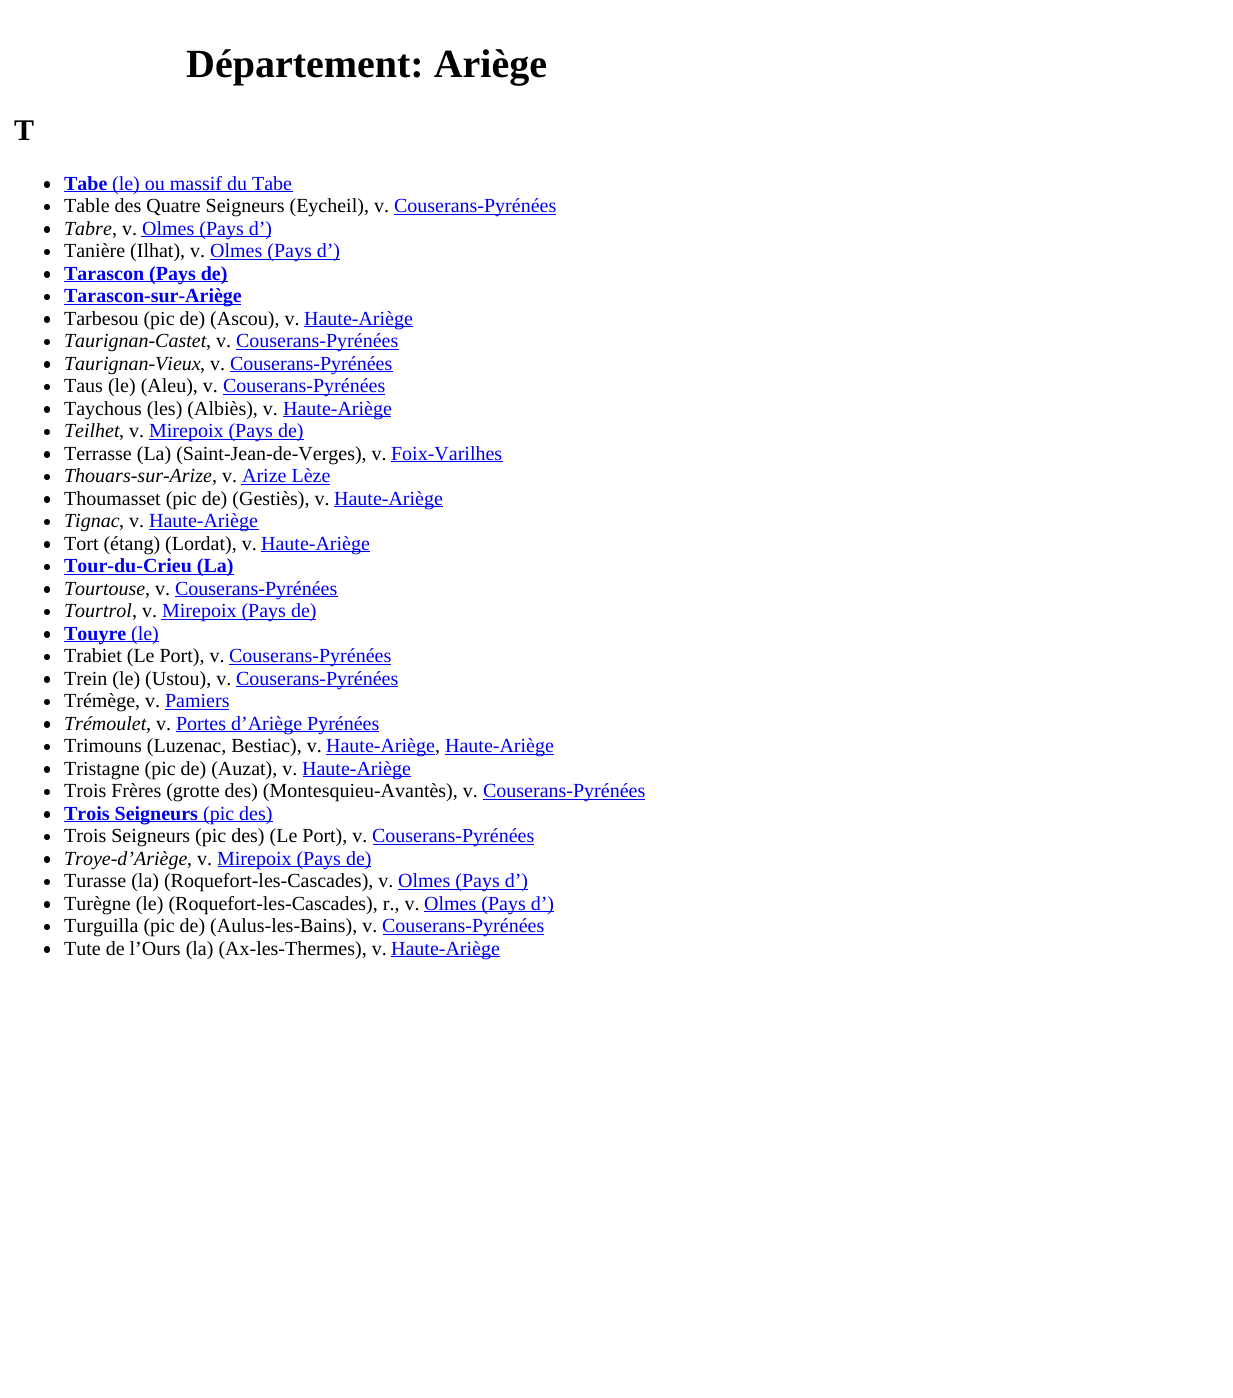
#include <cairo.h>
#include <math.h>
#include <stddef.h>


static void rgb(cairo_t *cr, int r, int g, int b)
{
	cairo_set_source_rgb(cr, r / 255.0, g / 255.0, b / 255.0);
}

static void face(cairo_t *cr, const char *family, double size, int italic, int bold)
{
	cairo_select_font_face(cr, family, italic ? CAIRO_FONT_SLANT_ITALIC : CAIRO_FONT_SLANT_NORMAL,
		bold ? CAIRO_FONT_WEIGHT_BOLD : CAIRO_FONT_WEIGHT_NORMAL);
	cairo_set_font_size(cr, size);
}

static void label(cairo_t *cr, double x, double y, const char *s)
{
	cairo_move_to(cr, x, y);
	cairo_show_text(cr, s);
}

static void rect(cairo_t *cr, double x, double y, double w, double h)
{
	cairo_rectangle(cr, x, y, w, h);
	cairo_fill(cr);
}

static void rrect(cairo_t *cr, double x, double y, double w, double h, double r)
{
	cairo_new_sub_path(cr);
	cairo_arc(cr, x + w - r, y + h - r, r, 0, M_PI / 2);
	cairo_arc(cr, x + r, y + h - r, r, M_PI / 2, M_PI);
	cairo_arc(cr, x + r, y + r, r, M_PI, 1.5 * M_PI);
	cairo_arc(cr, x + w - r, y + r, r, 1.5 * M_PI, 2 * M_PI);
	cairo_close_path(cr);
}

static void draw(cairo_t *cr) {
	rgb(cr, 255, 255, 255);
	cairo_paint(cr);
	face(cr, "Liberation Serif", 40, 0, 1);
	rgb(cr, 0, 0, 0);
	label(cr, 186, 77, "Département: Ariège");
	face(cr, "Liberation Serif", 30, 0, 1);
	label(cr, 14, 140, "T");
	rrect(cr, 44, 181, 6, 7, 3);
	cairo_fill(cr);
	face(cr, "Liberation Serif", 20, 0, 1);
	rgb(cr, 0, 0, 238);
	label(cr, 64, 190, "Tabe");
	rect(cr, 64, 191, 229, 1);
	face(cr, "Liberation Serif", 20, 0, 0);
	label(cr, 112, 190, "(le) ou massif du Tabe");
	rgb(cr, 0, 0, 0);
	cairo_new_path(cr);
	cairo_arc(cr, 47, 207, 3, 0, 2 * M_PI);
	cairo_fill(cr);
	label(cr, 64, 212, "Table des Quatre Seigneurs (Eycheil), v.");
	rgb(cr, 0, 0, 238);
	rect(cr, 394, 214, 162, 1);
	label(cr, 394, 212, "Couserans-Pyrénées");
	rgb(cr, 0, 0, 0);
	rrect(cr, 44, 226, 6, 7, 3);
	cairo_fill(cr);
	face(cr, "Liberation Serif", 20, 1, 0);
	label(cr, 64, 235, "Tabre");
	face(cr, "Liberation Serif", 20, 0, 0);
	label(cr, 112, 235, ", v.");
	rgb(cr, 0, 0, 238);
	rect(cr, 141, 236, 130, 1);
	label(cr, 142, 235, "Olmes (Pays d’)");
	rgb(cr, 0, 0, 0);
	cairo_new_path(cr);
	cairo_arc(cr, 47, 252, 3, 0, 2 * M_PI);
	cairo_fill(cr);
	label(cr, 64, 257, "Tanière (Ilhat), v.");
	rgb(cr, 0, 0, 238);
	rect(cr, 210, 259, 130, 1);
	label(cr, 210, 257, "Olmes (Pays d’)");
	rgb(cr, 0, 0, 0);
	rrect(cr, 44, 271, 6, 7, 3);
	cairo_fill(cr);
	rgb(cr, 0, 0, 238);
	rect(cr, 64, 281, 164, 1);
	face(cr, "Liberation Serif", 20, 0, 1);
	label(cr, 64, 280, "Tarascon (Pays de)");
	rgb(cr, 0, 0, 0);
	cairo_new_path(cr);
	cairo_arc(cr, 47, 297, 3, 0, 2 * M_PI);
	cairo_fill(cr);
	rgb(cr, 0, 0, 238);
	rect(cr, 64, 304, 177, 1);
	label(cr, 64, 302, "Tarascon-sur-Ariège");
	rgb(cr, 0, 0, 0);
	rrect(cr, 44, 316, 6, 7, 3);
	cairo_fill(cr);
	face(cr, "Liberation Serif", 20, 0, 0);
	label(cr, 64, 325, "Tarbesou (pic de) (Ascou), v.");
	rgb(cr, 0, 0, 238);
	rect(cr, 304, 326, 109, 1);
	label(cr, 304, 325, "Haute-Ariège");
	rgb(cr, 0, 0, 0);
	cairo_new_path(cr);
	cairo_arc(cr, 47, 342, 3, 0, 2 * M_PI);
	cairo_fill(cr);
	face(cr, "Liberation Serif", 20, 1, 0);
	label(cr, 64, 347, "Taurignan-Castet");
	face(cr, "Liberation Serif", 20, 0, 0);
	label(cr, 206, 347, ", v.");
	rgb(cr, 0, 0, 238);
	rect(cr, 236, 349, 163, 1);
	label(cr, 236, 347, "Couserans-Pyrénées");
	rgb(cr, 0, 0, 0);
	rrect(cr, 44, 361, 6, 7, 3);
	cairo_fill(cr);
	face(cr, "Liberation Serif", 20, 1, 0);
	label(cr, 64, 370, "Taurignan-Vieux");
	face(cr, "Liberation Serif", 20, 0, 0);
	label(cr, 200, 370, ", v.");
	rgb(cr, 0, 0, 238);
	rect(cr, 230, 371, 163, 1);
	label(cr, 230, 370, "Couserans-Pyrénées");
	rgb(cr, 0, 0, 0);
	cairo_new_path(cr);
	cairo_arc(cr, 47, 387, 3, 0, 2 * M_PI);
	cairo_fill(cr);
	label(cr, 64, 392, "Taus (le) (Aleu), v.");
	rgb(cr, 0, 0, 238);
	rect(cr, 223, 394, 162, 1);
	label(cr, 223, 392, "Couserans-Pyrénées");
	rgb(cr, 0, 0, 0);
	rrect(cr, 44, 406, 6, 7, 3);
	cairo_fill(cr);
	label(cr, 64, 415, "Taychous (les) (Albiès), v.");
	rgb(cr, 0, 0, 238);
	rect(cr, 283, 416, 108, 1);
	label(cr, 283, 415, "Haute-Ariège");
	rgb(cr, 0, 0, 0);
	cairo_new_path(cr);
	cairo_arc(cr, 47, 432, 3, 0, 2 * M_PI);
	cairo_fill(cr);
	face(cr, "Liberation Serif", 20, 1, 0);
	label(cr, 64, 437, "Teilhet");
	face(cr, "Liberation Serif", 20, 0, 0);
	label(cr, 119, 437, ", v.");
	rgb(cr, 0, 0, 238);
	rect(cr, 149, 439, 155, 1);
	label(cr, 149, 437, "Mirepoix (Pays de)");
	rgb(cr, 0, 0, 0);
	rrect(cr, 44, 451, 6, 7, 3);
	cairo_fill(cr);
	label(cr, 64, 460, "Terrasse (La) (Saint-Jean-de-Verges), v.");
	rgb(cr, 0, 0, 238);
	label(cr, 391, 460, "Foix-Varilhes");
	rect(cr, 391, 461, 112, 1);
	rgb(cr, 0, 0, 0);
	cairo_new_path(cr);
	cairo_arc(cr, 47, 477, 3, 0, 2 * M_PI);
	cairo_fill(cr);
	face(cr, "Liberation Serif", 20, 1, 0);
	label(cr, 64, 482, "Thouars-sur-Arize");
	face(cr, "Liberation Serif", 20, 0, 0);
	label(cr, 212, 482, ", v.");
	rgb(cr, 0, 0, 238);
	label(cr, 242, 482, "Arize Lèze");
	rect(cr, 241, 484, 89, 1);
	rgb(cr, 0, 0, 0);
	rrect(cr, 44, 496, 6, 7, 3);
	cairo_fill(cr);
	label(cr, 64, 505, "Thoumasset (pic de) (Gestiès), v.");
	rgb(cr, 0, 0, 238);
	rect(cr, 334, 506, 109, 1);
	label(cr, 334, 505, "Haute-Ariège");
	rgb(cr, 0, 0, 0);
	cairo_new_path(cr);
	cairo_arc(cr, 47, 522, 3, 0, 2 * M_PI);
	cairo_fill(cr);
	face(cr, "Liberation Serif", 20, 1, 0);
	label(cr, 64, 527, "Tignac");
	face(cr, "Liberation Serif", 20, 0, 0);
	label(cr, 119, 527, ", v.");
	rgb(cr, 0, 0, 238);
	rect(cr, 149, 529, 110, 1);
	label(cr, 149, 527, "Haute-Ariège");
	rgb(cr, 0, 0, 0);
	rrect(cr, 44, 541, 6, 7, 3);
	cairo_fill(cr);
	label(cr, 64, 550, "Tort (étang) (Lordat), v.");
	rgb(cr, 0, 0, 238);
	rect(cr, 261, 551, 109, 1);
	label(cr, 261, 550, "Haute-Ariège");
	rgb(cr, 0, 0, 0);
	cairo_new_path(cr);
	cairo_arc(cr, 47, 567, 3, 0, 2 * M_PI);
	cairo_fill(cr);
	rgb(cr, 0, 0, 238);
	rect(cr, 64, 574, 170, 1);
	face(cr, "Liberation Serif", 20, 0, 1);
	label(cr, 64, 572, "Tour-du-Crieu (La)");
	rgb(cr, 0, 0, 0);
	rrect(cr, 44, 586, 6, 7, 3);
	cairo_fill(cr);
	face(cr, "Liberation Serif", 20, 1, 0);
	label(cr, 64, 595, "Tourtouse");
	face(cr, "Liberation Serif", 20, 0, 0);
	label(cr, 145, 595, ", v.");
	rgb(cr, 0, 0, 238);
	rect(cr, 175, 596, 163, 1);
	label(cr, 175, 595, "Couserans-Pyrénées");
	rgb(cr, 0, 0, 0);
	cairo_new_path(cr);
	cairo_arc(cr, 47, 612, 3, 0, 2 * M_PI);
	cairo_fill(cr);
	face(cr, "Liberation Serif", 20, 1, 0);
	label(cr, 64, 617, "Tourtrol");
	face(cr, "Liberation Serif", 20, 0, 0);
	label(cr, 132, 617, ", v.");
	rgb(cr, 0, 0, 238);
	rect(cr, 161, 619, 155, 1);
	label(cr, 162, 617, "Mirepoix (Pays de)");
	rgb(cr, 0, 0, 0);
	rrect(cr, 44, 631, 6, 7, 3);
	cairo_fill(cr);
	rgb(cr, 0, 0, 238);
	rect(cr, 64, 641, 95, 1);
	face(cr, "Liberation Serif", 20, 0, 1);
	label(cr, 64, 640, "Touyre");
	face(cr, "Liberation Serif", 20, 0, 0);
	label(cr, 131, 640, "(le)");
	rgb(cr, 0, 0, 0);
	cairo_new_path(cr);
	cairo_arc(cr, 47, 657, 3, 0, 2 * M_PI);
	cairo_fill(cr);
	label(cr, 64, 662, "Trabiet (Le Port), v.");
	rgb(cr, 0, 0, 238);
	rect(cr, 229, 664, 162, 1);
	label(cr, 229, 662, "Couserans-Pyrénées");
	rgb(cr, 0, 0, 0);
	rrect(cr, 44, 676, 6, 7, 3);
	cairo_fill(cr);
	label(cr, 64, 685, "Trein (le) (Ustou), v.");
	rgb(cr, 0, 0, 238);
	rect(cr, 236, 686, 162, 1);
	label(cr, 236, 685, "Couserans-Pyrénées");
	rgb(cr, 0, 0, 0);
	cairo_new_path(cr);
	cairo_arc(cr, 47, 702, 3, 0, 2 * M_PI);
	cairo_fill(cr);
	label(cr, 64, 707, "Trémège, v.");
	rgb(cr, 0, 0, 238);
	label(cr, 165, 707, "Pamiers");
	rect(cr, 165, 709, 64, 1);
	rgb(cr, 0, 0, 0);
	rrect(cr, 44, 721, 6, 7, 3);
	cairo_fill(cr);
	face(cr, "Liberation Serif", 20, 1, 0);
	label(cr, 64, 730, "Trémoulet");
	face(cr, "Liberation Serif", 20, 0, 0);
	label(cr, 146, 730, ", v.");
	rgb(cr, 0, 0, 238);
	rect(cr, 176, 731, 203, 1);
	label(cr, 176, 730, "Portes d’Ariège Pyrénées");
	rgb(cr, 0, 0, 0);
	cairo_new_path(cr);
	cairo_arc(cr, 47, 747, 3, 0, 2 * M_PI);
	cairo_fill(cr);
	label(cr, 64, 752, "Trimouns (Luzenac, Bestiac), v.");
	rgb(cr, 0, 0, 238);
	rect(cr, 326, 754, 109, 1);
	label(cr, 326, 752, "Haute-Ariège");
	rect(cr, 445, 754, 109, 1);
	label(cr, 445, 752, "Haute-Ariège");
	rgb(cr, 0, 0, 0);
	label(cr, 435, 752, ",");
	rrect(cr, 44, 766, 6, 7, 3);
	cairo_fill(cr);
	label(cr, 64, 775, "Tristagne (pic de) (Auzat), v.");
	rgb(cr, 0, 0, 238);
	rect(cr, 303, 776, 108, 1);
	label(cr, 302, 775, "Haute-Ariège");
	rgb(cr, 0, 0, 0);
	cairo_new_path(cr);
	cairo_arc(cr, 47, 792, 3, 0, 2 * M_PI);
	cairo_fill(cr);
	label(cr, 64, 797, "Trois Frères (grotte des) (Montesquieu-Avantès), v.");
	rgb(cr, 0, 0, 238);
	rect(cr, 483, 799, 162, 1);
	label(cr, 483, 797, "Couserans-Pyrénées");
	rgb(cr, 0, 0, 0);
	rrect(cr, 44, 811, 6, 7, 3);
	cairo_fill(cr);
	rgb(cr, 0, 0, 238);
	rect(cr, 64, 821, 209, 1);
	face(cr, "Liberation Serif", 20, 0, 1);
	label(cr, 64, 820, "Trois Seigneurs");
	face(cr, "Liberation Serif", 20, 0, 0);
	label(cr, 203, 820, "(pic des)");
	rgb(cr, 0, 0, 0);
	cairo_new_path(cr);
	cairo_arc(cr, 47, 837, 3, 0, 2 * M_PI);
	cairo_fill(cr);
	label(cr, 64, 842, "Trois Seigneurs (pic des) (Le Port), v.");
	rgb(cr, 0, 0, 238);
	rect(cr, 373, 844, 161, 1);
	label(cr, 372, 842, "Couserans-Pyrénées");
	rgb(cr, 0, 0, 0);
	rrect(cr, 44, 856, 6, 7, 3);
	cairo_fill(cr);
	face(cr, "Liberation Serif", 20, 1, 0);
	label(cr, 64, 865, "Troye-d’Ariège");
	face(cr, "Liberation Serif", 20, 0, 0);
	label(cr, 187, 865, ", v.");
	rgb(cr, 0, 0, 238);
	rect(cr, 218, 866, 153, 1);
	label(cr, 217, 865, "Mirepoix (Pays de)");
	rgb(cr, 0, 0, 0);
	cairo_new_path(cr);
	cairo_arc(cr, 47, 882, 3, 0, 2 * M_PI);
	cairo_fill(cr);
	label(cr, 64, 887, "Turasse (la) (Roquefort-les-Cascades), v.");
	rgb(cr, 0, 0, 238);
	rect(cr, 398, 889, 130, 1);
	label(cr, 398, 887, "Olmes (Pays d’)");
	rgb(cr, 0, 0, 0);
	rrect(cr, 44, 901, 6, 7, 3);
	cairo_fill(cr);
	label(cr, 64, 910, "Turègne (le) (Roquefort-les-Cascades), r., v.");
	rgb(cr, 0, 0, 238);
	rect(cr, 424, 911, 130, 1);
	label(cr, 424, 910, "Olmes (Pays d’)");
	rgb(cr, 0, 0, 0);
	cairo_new_path(cr);
	cairo_arc(cr, 47, 927, 3, 0, 2 * M_PI);
	cairo_fill(cr);
	label(cr, 64, 932, "Turguilla (pic de) (Aulus-les-Bains), v.");
	rgb(cr, 0, 0, 238);
	rect(cr, 383, 934, 161, 1);
	label(cr, 382, 932, "Couserans-Pyrénées");
	rgb(cr, 0, 0, 0);
	rrect(cr, 44, 946, 6, 7, 3);
	cairo_fill(cr);
	label(cr, 64, 955, "Tute de l’Ours (la) (Ax-les-Thermes), v.");
	rgb(cr, 0, 0, 238);
	rect(cr, 391, 956, 109, 1);
	label(cr, 391, 955, "Haute-Ariège");
}

int main(void) {
	cairo_surface_t *surface = cairo_image_surface_create(CAIRO_FORMAT_RGB24, 1233, 1398);
	cairo_t *cr = cairo_create(surface);
	cairo_font_options_t *options = cairo_font_options_create();
	cairo_font_options_set_hint_metrics(options, CAIRO_HINT_METRICS_OFF);
	cairo_font_options_set_hint_style(options, CAIRO_HINT_STYLE_NONE);
	cairo_set_font_options(cr, options);
	cairo_set_miter_limit(cr, 4);
	draw(cr);
	cairo_surface_write_to_png(surface, "render.png");
	cairo_font_options_destroy(options);
	cairo_destroy(cr);
	cairo_surface_destroy(surface);
	return 0;
}
